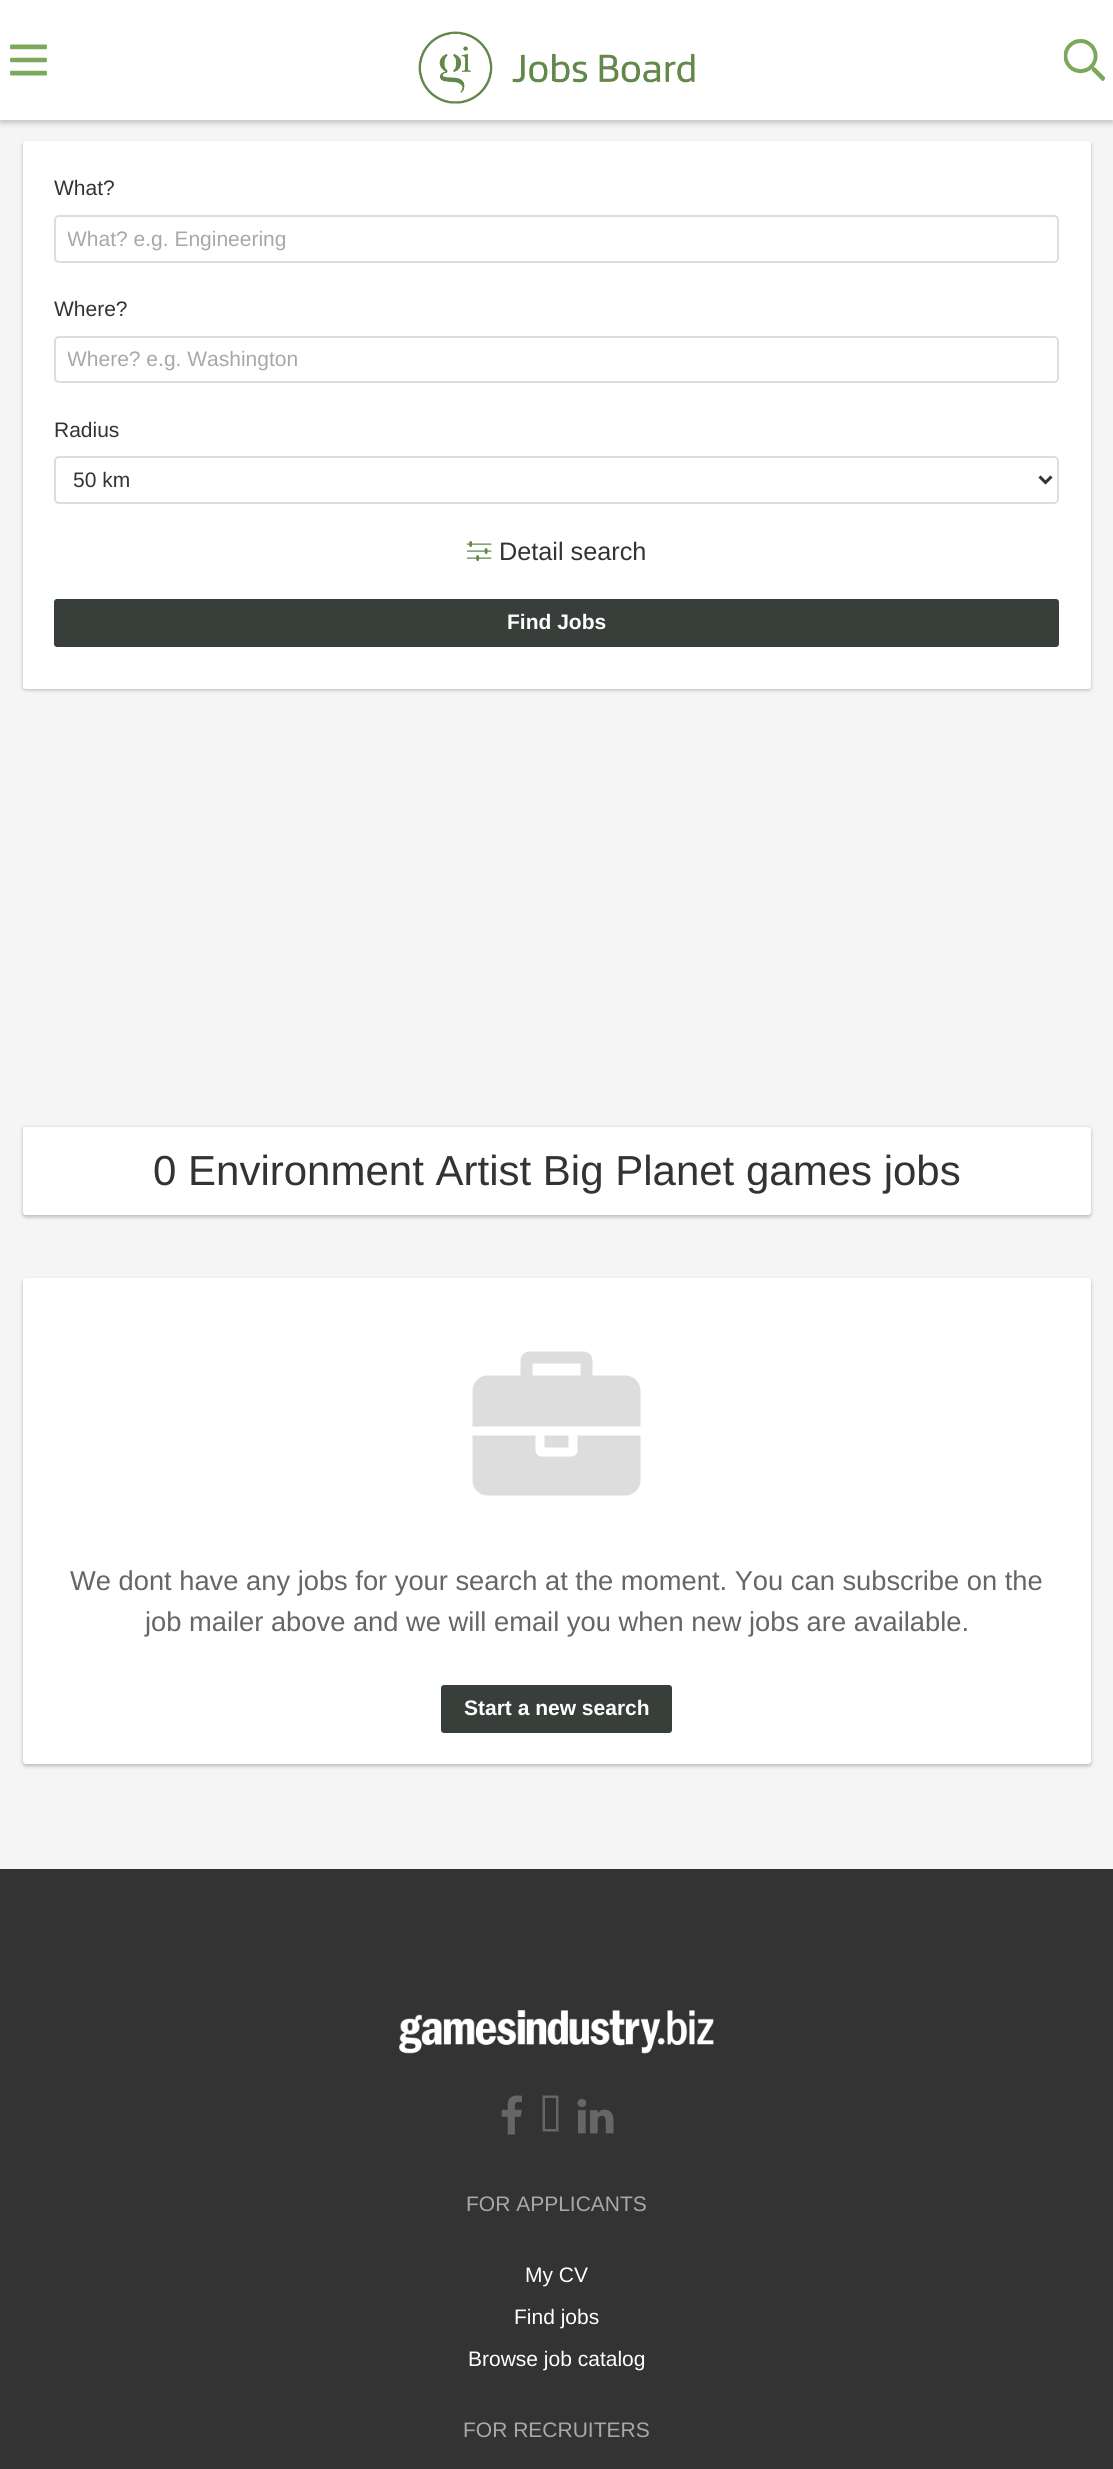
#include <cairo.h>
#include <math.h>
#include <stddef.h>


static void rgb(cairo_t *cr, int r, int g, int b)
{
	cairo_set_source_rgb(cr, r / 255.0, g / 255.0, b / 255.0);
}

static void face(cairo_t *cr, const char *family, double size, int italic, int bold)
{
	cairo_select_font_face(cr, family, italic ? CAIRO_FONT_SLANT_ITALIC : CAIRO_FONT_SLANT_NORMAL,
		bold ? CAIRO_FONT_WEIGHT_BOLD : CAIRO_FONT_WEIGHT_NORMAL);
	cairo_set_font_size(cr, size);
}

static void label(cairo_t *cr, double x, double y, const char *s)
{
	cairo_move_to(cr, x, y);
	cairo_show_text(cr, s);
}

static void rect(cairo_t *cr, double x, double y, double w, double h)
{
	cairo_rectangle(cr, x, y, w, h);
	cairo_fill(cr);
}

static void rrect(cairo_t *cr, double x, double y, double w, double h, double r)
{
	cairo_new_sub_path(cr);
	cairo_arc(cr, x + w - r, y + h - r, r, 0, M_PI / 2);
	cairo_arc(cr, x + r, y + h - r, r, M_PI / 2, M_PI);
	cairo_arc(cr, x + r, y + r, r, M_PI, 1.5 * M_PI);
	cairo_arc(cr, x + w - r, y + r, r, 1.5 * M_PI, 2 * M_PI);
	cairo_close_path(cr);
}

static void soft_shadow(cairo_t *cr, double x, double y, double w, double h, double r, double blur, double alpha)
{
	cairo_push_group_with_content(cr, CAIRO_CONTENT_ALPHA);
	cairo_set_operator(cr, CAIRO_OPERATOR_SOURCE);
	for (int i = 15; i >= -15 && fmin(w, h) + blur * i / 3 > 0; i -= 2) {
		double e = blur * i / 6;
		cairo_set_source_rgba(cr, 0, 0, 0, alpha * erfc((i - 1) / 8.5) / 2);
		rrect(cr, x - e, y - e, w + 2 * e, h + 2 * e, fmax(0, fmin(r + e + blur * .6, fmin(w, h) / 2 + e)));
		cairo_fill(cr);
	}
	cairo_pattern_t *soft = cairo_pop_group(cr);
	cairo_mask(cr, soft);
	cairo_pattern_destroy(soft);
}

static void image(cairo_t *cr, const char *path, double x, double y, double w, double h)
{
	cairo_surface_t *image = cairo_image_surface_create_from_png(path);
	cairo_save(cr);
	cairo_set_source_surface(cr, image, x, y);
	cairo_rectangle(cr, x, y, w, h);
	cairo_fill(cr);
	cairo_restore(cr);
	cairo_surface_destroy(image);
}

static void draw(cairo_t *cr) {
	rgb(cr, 245, 245, 245);
	cairo_paint(cr);
	rgb(cr, 145, 145, 145);
	soft_shadow(cr, 0, 3, 1113, 120, 0, 3, 0.5);
	rgb(cr, 255, 255, 255);
	rect(cr, 0, 0, 1113, 120);
	image(cr, "image0.png", 10, 44, 37, 32);
	image(cr, "image1.png", 418, 31, 277, 73);
	image(cr, "image2.png", 1063, 39, 43, 42);
	rgb(cr, 0, 0, 0);
	soft_shadow(cr, 23, 143, 1068, 547, 3, 2, 0.25);
	rgb(cr, 255, 255, 255);
	rrect(cr, 23, 141, 1068, 548, 3);
	cairo_fill(cr);
	face(cr, "Liberation Sans", 21, 0, 0);
	rgb(cr, 51, 51, 51);
	label(cr, 54, 195, "What?");
	rrect(cr, 55, 216, 1003, 46, 4);
	rgb(cr, 221, 221, 221);
	cairo_stroke(cr);
	cairo_save(cr);
	cairo_rectangle(cr, 68, 227, 978, 24);
	cairo_clip(cr);
	rgb(cr, 168, 168, 168);
	label(cr, 67, 246, "What? e.g. Engineering");
	cairo_restore(cr);
	rgb(cr, 51, 51, 51);
	label(cr, 54, 316, "Where?");
	rrect(cr, 55, 337, 1003, 45, 4);
	rgb(cr, 221, 221, 221);
	cairo_stroke(cr);
	cairo_save(cr);
	cairo_rectangle(cr, 68, 347, 978, 24);
	cairo_clip(cr);
	rgb(cr, 168, 168, 168);
	label(cr, 67, 366, "Where? e.g. Washington");
	cairo_restore(cr);
	rgb(cr, 51, 51, 51);
	label(cr, 54, 437, "Radius");
	rrect(cr, 55, 457, 1003, 46, 4);
	rgb(cr, 221, 221, 221);
	cairo_stroke(cr);
	cairo_new_path(cr);
	cairo_move_to(cr, 1039.5, 476.5);
	cairo_line_to(cr, 1045.5, 482.5);
	cairo_line_to(cr, 1051.5, 476.5);
	rgb(cr, 51, 51, 51);
	cairo_set_line_width(cr, 3);
	cairo_stroke(cr);
	label(cr, 73, 487, "50 km");
	image(cr, "image3.png", 466, 541, 26, 20);
	face(cr, "Liberation Sans", 25.25, 0, 0);
	label(cr, 499, 560, "Detail search");
	rgb(cr, 56, 62, 58);
	rrect(cr, 55, 600, 1003, 46, 2);
	cairo_fill_preserve(cr);
	cairo_set_line_width(cr, 2);
	cairo_stroke(cr);
	face(cr, "Liberation Sans", 21, 0, 1);
	rgb(cr, 255, 255, 255);
	label(cr, 507, 629, "Find Jobs");
	rgb(cr, 0, 0, 0);
	soft_shadow(cr, 23, 1128, 1068, 89, 3, 2, 0.25);
	rgb(cr, 255, 255, 255);
	rrect(cr, 23, 1127, 1068, 88, 3);
	cairo_fill(cr);
	face(cr, "Liberation Sans", 42, 0, 0);
	rgb(cr, 51, 51, 51);
	label(cr, 153, 1185, "0 Environment Artist Big Planet games jobs");
	rgb(cr, 0, 0, 0);
	soft_shadow(cr, 23, 1280, 1068, 486, 3, 2, 0.25);
	rgb(cr, 255, 255, 255);
	rrect(cr, 23, 1278, 1068, 486, 3);
	cairo_fill(cr);
	image(cr, "image4.png", 472, 1351, 169, 145);
	face(cr, "Liberation Sans", 27.3, 0, 0);
	rgb(cr, 102, 102, 102);
	label(cr, 70, 1590, "We dont have any jobs for your search at the moment. You can subscribe on the");
	label(cr, 145, 1631, "job mailer above and we will email you when new jobs are available.");
	rgb(cr, 56, 62, 58);
	rrect(cr, 442, 1686, 229, 46, 2);
	cairo_fill_preserve(cr);
	cairo_stroke(cr);
	face(cr, "Liberation Sans", 21, 0, 1);
	rgb(cr, 255, 255, 255);
	label(cr, 464, 1715, "Start a new search");
	rgb(cr, 51, 51, 51);
	rect(cr, 0, 1869, 1113, 600);
	image(cr, "image5.png", 399, 2010, 315, 44);
	image(cr, "image6.png", 501, 2095, 21, 40);
	rgb(cr, 102, 102, 102);
	cairo_new_path(cr);
	cairo_move_to(cr, 545, 2129);
	cairo_line_to(cr, 545, 2098);
	cairo_line_to(cr, 556, 2098);
	cairo_line_to(cr, 556, 2129);
	cairo_close_path(cr);
	cairo_move_to(cr, 542.5, 2131.5);
	cairo_line_to(cr, 558.5, 2131.5);
	cairo_line_to(cr, 558.5, 2095.5);
	cairo_line_to(cr, 542.5, 2095.5);
	cairo_close_path(cr);
	cairo_fill(cr);
	image(cr, "image7.png", 577, 2099, 37, 35);
	face(cr, "Liberation Sans", 21, 0, 0);
	rgb(cr, 168, 168, 168);
	label(cr, 466, 2211, "FOR APPLICANTS");
	rgb(cr, 255, 255, 255);
	label(cr, 525, 2282, "My CV");
	label(cr, 514, 2324, "Find jobs");
	label(cr, 468, 2366, "Browse job catalog");
	rgb(cr, 168, 168, 168);
	label(cr, 463, 2437, "FOR RECRUITERS");
}

int main(void) {
	cairo_surface_t *surface = cairo_image_surface_create(CAIRO_FORMAT_RGB24, 1113, 2469);
	cairo_t *cr = cairo_create(surface);
	cairo_font_options_t *options = cairo_font_options_create();
	cairo_font_options_set_hint_metrics(options, CAIRO_HINT_METRICS_OFF);
	cairo_font_options_set_hint_style(options, CAIRO_HINT_STYLE_NONE);
	cairo_set_font_options(cr, options);
	cairo_set_miter_limit(cr, 4);
	draw(cr);
	cairo_surface_write_to_png(surface, "render.png");
	cairo_font_options_destroy(options);
	cairo_destroy(cr);
	cairo_surface_destroy(surface);
	return 0;
}
